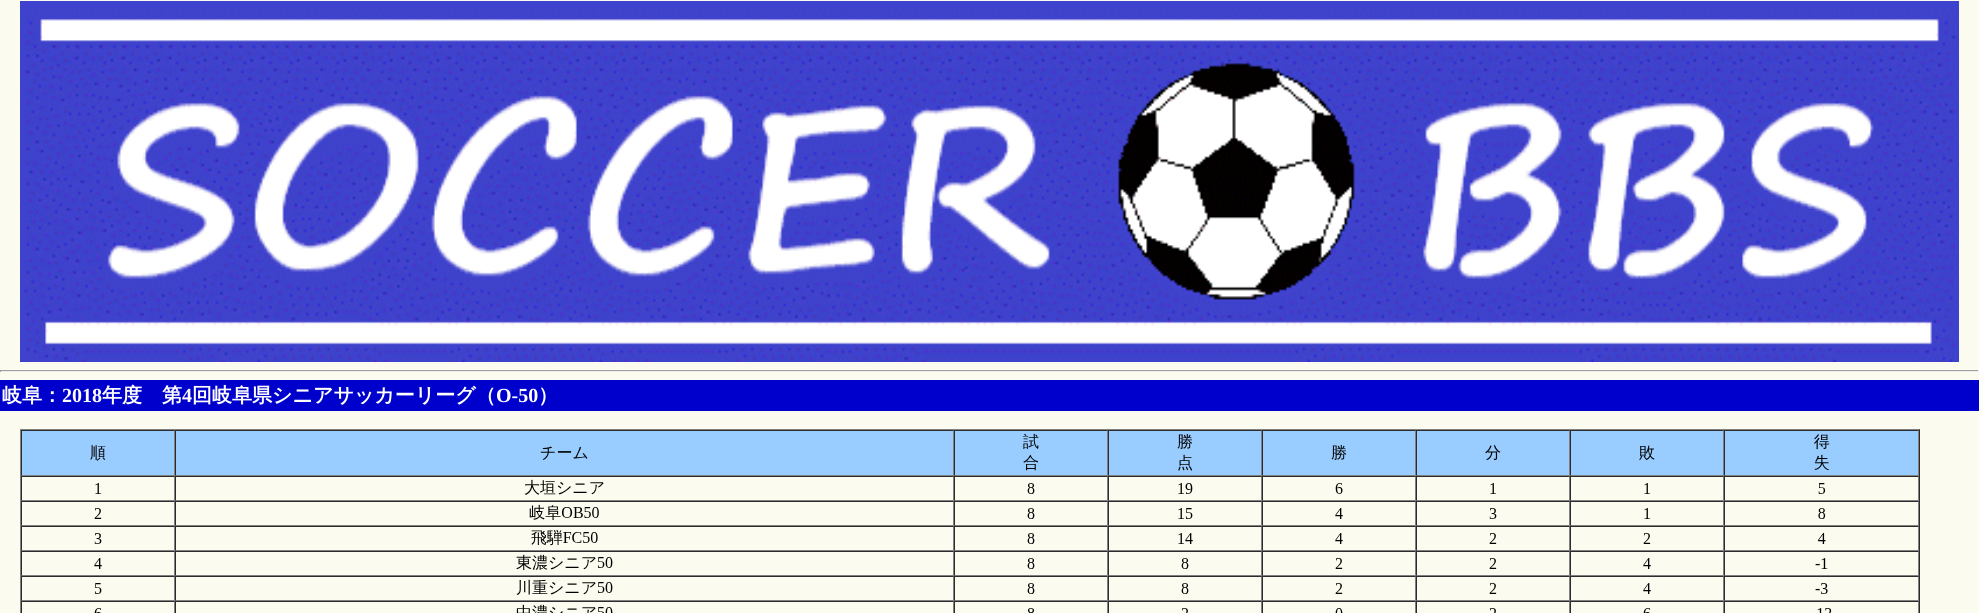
#include <cairo.h>
#include <math.h>
#include <stddef.h>


static void rgb(cairo_t *cr, int r, int g, int b)
{
	cairo_set_source_rgb(cr, r / 255.0, g / 255.0, b / 255.0);
}

static void face(cairo_t *cr, const char *family, double size, int italic, int bold)
{
	cairo_select_font_face(cr, family, italic ? CAIRO_FONT_SLANT_ITALIC : CAIRO_FONT_SLANT_NORMAL,
		bold ? CAIRO_FONT_WEIGHT_BOLD : CAIRO_FONT_WEIGHT_NORMAL);
	cairo_set_font_size(cr, size);
}

static void label(cairo_t *cr, double x, double y, const char *s)
{
	cairo_move_to(cr, x, y);
	cairo_show_text(cr, s);
}

static void rect(cairo_t *cr, double x, double y, double w, double h)
{
	cairo_rectangle(cr, x, y, w, h);
	cairo_fill(cr);
}

static void image(cairo_t *cr, const char *path, double x, double y, double w, double h)
{
	cairo_surface_t *image = cairo_image_surface_create_from_png(path);
	cairo_save(cr);
	cairo_set_source_surface(cr, image, x, y);
	cairo_rectangle(cr, x, y, w, h);
	cairo_fill(cr);
	cairo_restore(cr);
	cairo_surface_destroy(image);
}

static void draw(cairo_t *cr) {
	rgb(cr, 251, 251, 239);
	cairo_paint(cr);
	image(cr, "image0.png", 20, 1, 1939, 361);
	rgb(cr, 159, 159, 159);
	rect(cr, 0, 370, 1979, 1);
	rgb(cr, 238, 238, 238);
	rect(cr, 1978, 370, 1, 2);
	rect(cr, 0, 371, 1979, 1);
	rgb(cr, 159, 159, 159);
	rect(cr, 0, 370, 1, 2);
	rgb(cr, 0, 0, 205);
	rect(cr, 0, 380, 1979, 31);
	face(cr, "WenQuanYi Zen Hei", 20, 0, 1);
	rgb(cr, 255, 255, 255);
	label(cr, 2, 402, "岐阜：");
	face(cr, "Liberation Serif", 20, 0, 1);
	label(cr, 62, 402, "2018");
	face(cr, "WenQuanYi Zen Hei", 20, 0, 1);
	label(cr, 102, 402, "年度　第");
	face(cr, "Liberation Serif", 20, 0, 1);
	label(cr, 182, 402, "4");
	face(cr, "WenQuanYi Zen Hei", 20, 0, 1);
	label(cr, 192, 402, "回岐阜県シニアサッカーリーグ（");
	face(cr, "Liberation Serif", 20, 0, 1);
	label(cr, 496, 402, "O-50");
	face(cr, "WenQuanYi Zen Hei", 20, 0, 1);
	label(cr, 538, 402, "）");
	image(cr, "image1.png", 20, 429, 1900, 184);
}

int main(void) {
	cairo_surface_t *surface = cairo_image_surface_create(CAIRO_FORMAT_RGB24, 1979, 613);
	cairo_t *cr = cairo_create(surface);
	cairo_font_options_t *options = cairo_font_options_create();
	cairo_font_options_set_hint_metrics(options, CAIRO_HINT_METRICS_OFF);
	cairo_font_options_set_hint_style(options, CAIRO_HINT_STYLE_NONE);
	cairo_set_font_options(cr, options);
	cairo_set_miter_limit(cr, 4);
	draw(cr);
	cairo_surface_write_to_png(surface, "render.png");
	cairo_font_options_destroy(options);
	cairo_destroy(cr);
	cairo_surface_destroy(surface);
	return 0;
}
